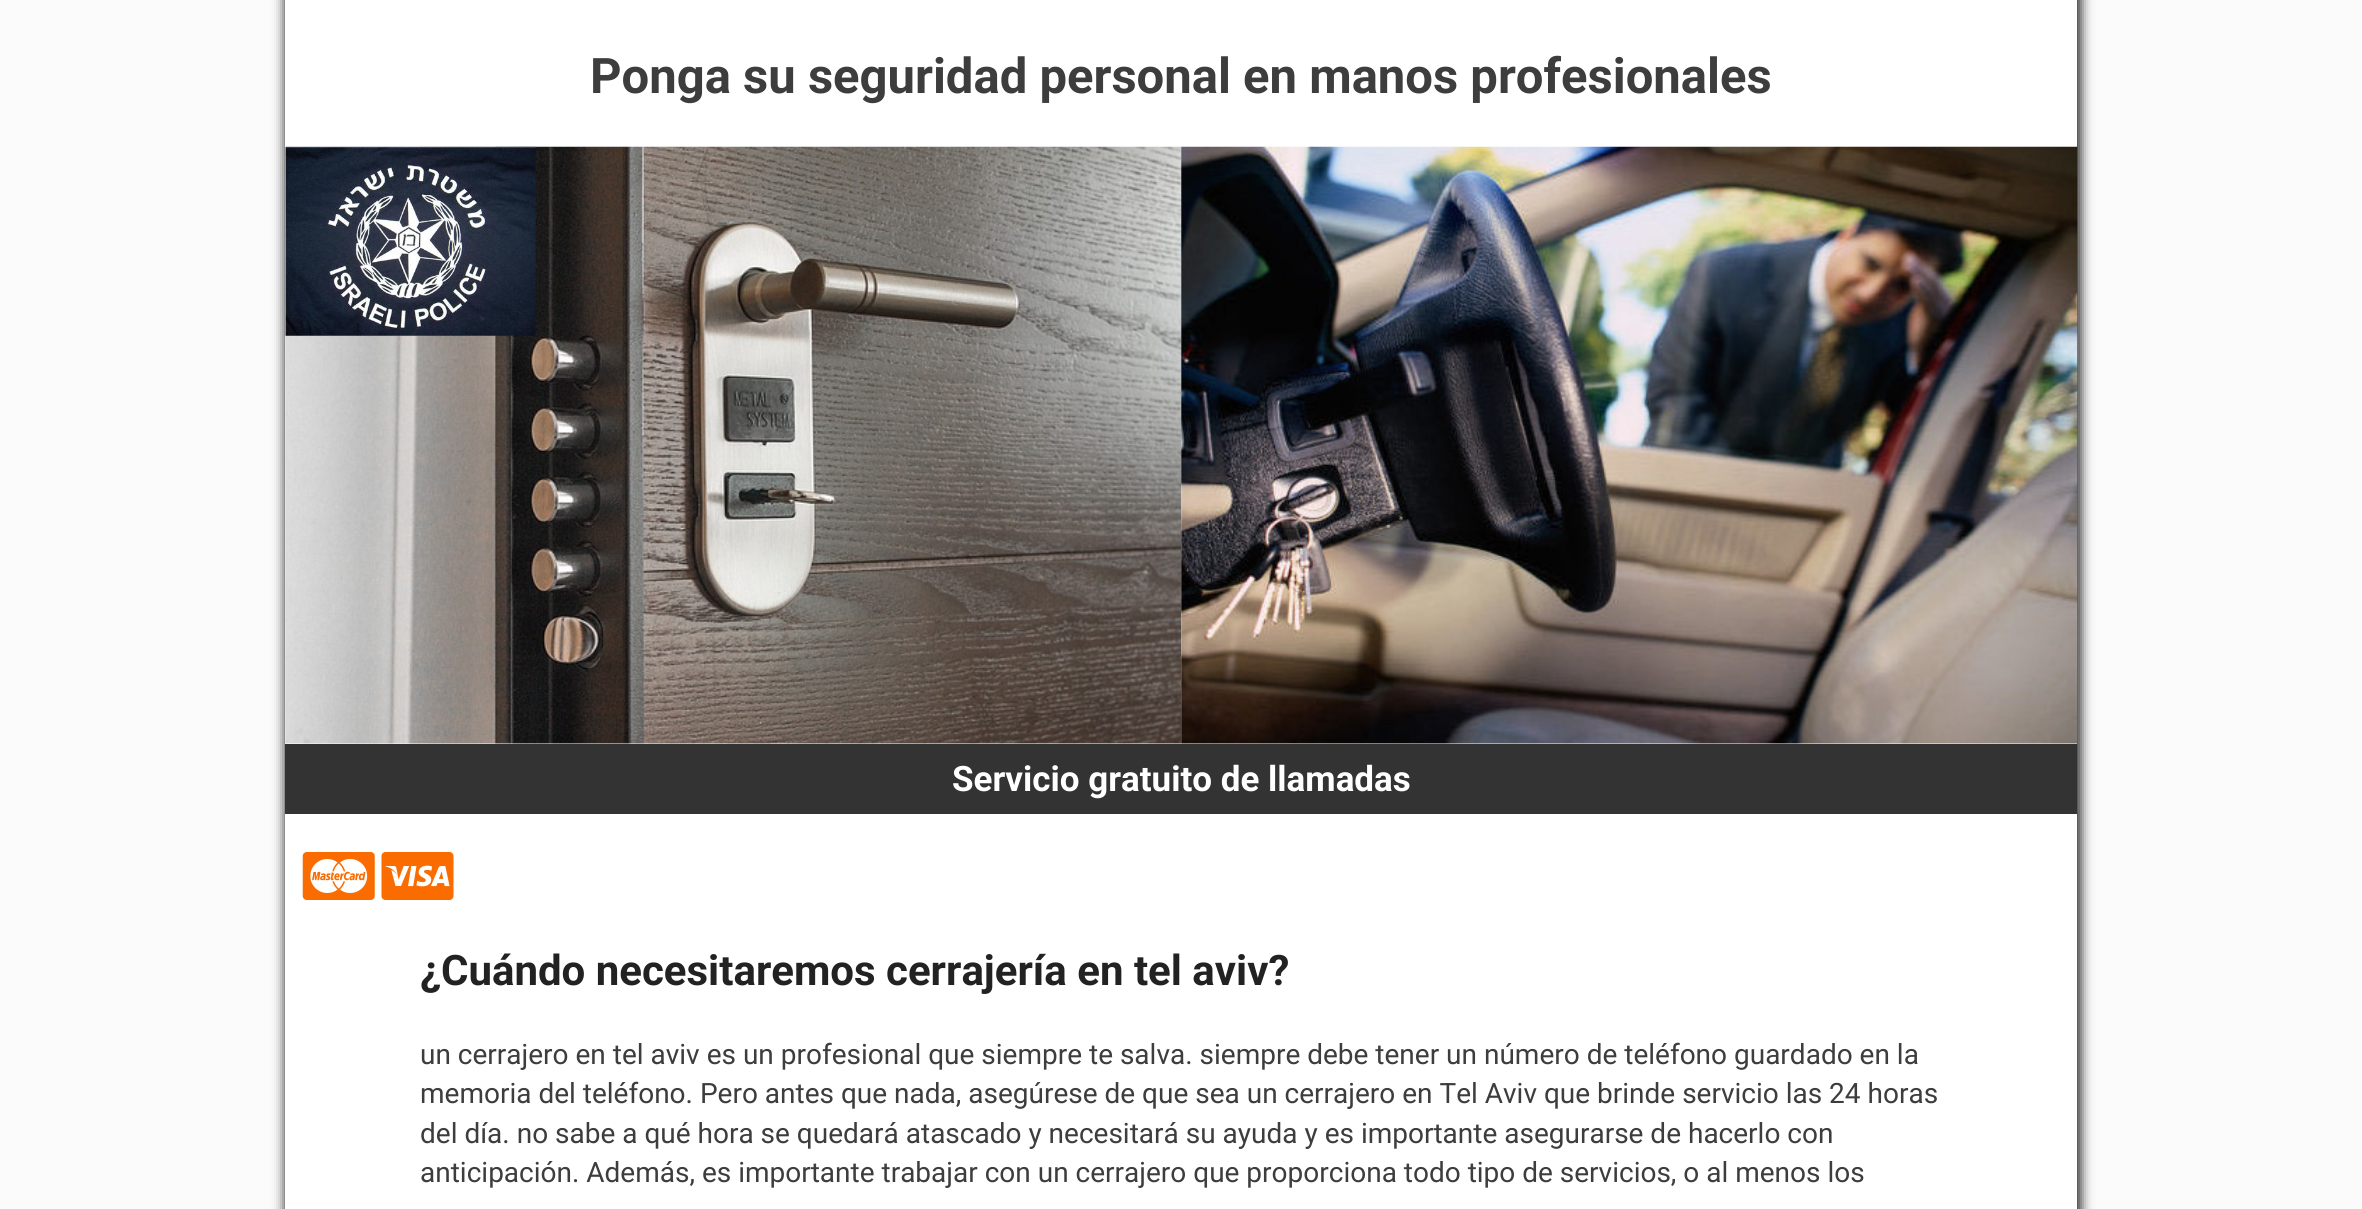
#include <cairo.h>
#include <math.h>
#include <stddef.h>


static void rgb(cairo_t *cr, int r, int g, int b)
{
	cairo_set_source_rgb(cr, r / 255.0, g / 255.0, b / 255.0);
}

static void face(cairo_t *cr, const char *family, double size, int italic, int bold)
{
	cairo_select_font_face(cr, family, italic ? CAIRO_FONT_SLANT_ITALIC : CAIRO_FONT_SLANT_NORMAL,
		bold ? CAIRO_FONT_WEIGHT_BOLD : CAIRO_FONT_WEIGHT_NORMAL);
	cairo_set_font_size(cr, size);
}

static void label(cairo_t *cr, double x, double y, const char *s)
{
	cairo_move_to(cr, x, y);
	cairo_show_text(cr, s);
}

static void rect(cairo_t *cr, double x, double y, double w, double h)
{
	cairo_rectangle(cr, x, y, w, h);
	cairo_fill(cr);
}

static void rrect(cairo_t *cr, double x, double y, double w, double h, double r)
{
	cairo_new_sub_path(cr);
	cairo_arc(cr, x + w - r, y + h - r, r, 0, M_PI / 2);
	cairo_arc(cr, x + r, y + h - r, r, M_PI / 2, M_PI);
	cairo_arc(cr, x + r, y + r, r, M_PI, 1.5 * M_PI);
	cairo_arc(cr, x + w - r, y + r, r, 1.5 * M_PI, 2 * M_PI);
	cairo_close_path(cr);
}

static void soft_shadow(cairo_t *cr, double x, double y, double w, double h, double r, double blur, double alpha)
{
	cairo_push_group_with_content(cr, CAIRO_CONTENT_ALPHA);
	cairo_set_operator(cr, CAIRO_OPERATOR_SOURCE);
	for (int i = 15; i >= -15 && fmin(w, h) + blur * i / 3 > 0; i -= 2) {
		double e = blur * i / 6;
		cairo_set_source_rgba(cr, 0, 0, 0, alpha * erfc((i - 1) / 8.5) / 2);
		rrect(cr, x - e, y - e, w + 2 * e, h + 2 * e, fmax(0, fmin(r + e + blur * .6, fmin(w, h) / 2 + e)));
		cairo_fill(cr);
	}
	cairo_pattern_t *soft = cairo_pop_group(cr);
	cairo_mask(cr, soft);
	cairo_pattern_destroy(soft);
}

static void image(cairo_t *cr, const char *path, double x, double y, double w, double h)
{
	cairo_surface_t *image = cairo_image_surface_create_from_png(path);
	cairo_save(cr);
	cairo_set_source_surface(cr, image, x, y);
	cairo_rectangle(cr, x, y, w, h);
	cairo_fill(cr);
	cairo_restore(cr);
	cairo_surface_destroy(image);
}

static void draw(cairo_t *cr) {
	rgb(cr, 251, 251, 251);
	cairo_paint(cr);
	rgb(cr, 34, 34, 34);
	soft_shadow(cr, 285, -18, 1796, 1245, 0, 6, 1);
	rgb(cr, 255, 255, 255);
	rect(cr, 285, 0, 1792, 1209);
	face(cr, "Roboto", 49, 0, 1);
	rgb(cr, 61, 61, 61);
	label(cr, 590, 93, "Ponga su seguridad personal en manos profesionales");
	image(cr, "image0.png", 285, 146, 897, 598);
	image(cr, "image1.png", 285, 146, 251, 190);
	image(cr, "image2.png", 1181, 146, 897, 598);
	rgb(cr, 51, 51, 51);
	rect(cr, 285, 744, 1792, 70);
	face(cr, "Roboto", 35, 0, 1);
	rgb(cr, 255, 255, 255);
	label(cr, 952, 791, "Servicio gratuito de llamadas");
	image(cr, "image3.png", 302, 852, 73, 48);
	image(cr, "image4.png", 381, 852, 73, 48);
	face(cr, "Roboto", 42, 0, 1);
	rgb(cr, 34, 34, 34);
	label(cr, 420, 985, "¿Cuándo necesitaremos cerrajería en tel aviv?");
	face(cr, "Roboto", 28, 0, 0);
	rgb(cr, 61, 61, 61);
	label(cr, 420, 1064, "un cerrajero en tel aviv es un profesional que siempre te salva. siempre debe tener un número de teléfono guardado en la");
	label(cr, 420, 1103, "memoria del teléfono. Pero antes que nada, asegúrese de que sea un cerrajero en Tel Aviv que brinde servicio las 24 horas");
	label(cr, 420, 1143, "del día. no sabe a qué hora se quedará atascado y necesitará su ayuda y es importante asegurarse de hacerlo con");
	label(cr, 420, 1182, "anticipación. Además, es importante trabajar con un cerrajero que proporciona todo tipo de servicios, o al menos los");
}

int main(void) {
	cairo_surface_t *surface = cairo_image_surface_create(CAIRO_FORMAT_RGB24, 2362, 1209);
	cairo_t *cr = cairo_create(surface);
	cairo_font_options_t *options = cairo_font_options_create();
	cairo_font_options_set_hint_metrics(options, CAIRO_HINT_METRICS_OFF);
	cairo_font_options_set_hint_style(options, CAIRO_HINT_STYLE_NONE);
	cairo_set_font_options(cr, options);
	cairo_set_miter_limit(cr, 4);
	draw(cr);
	cairo_surface_write_to_png(surface, "render.png");
	cairo_font_options_destroy(options);
	cairo_destroy(cr);
	cairo_surface_destroy(surface);
	return 0;
}
